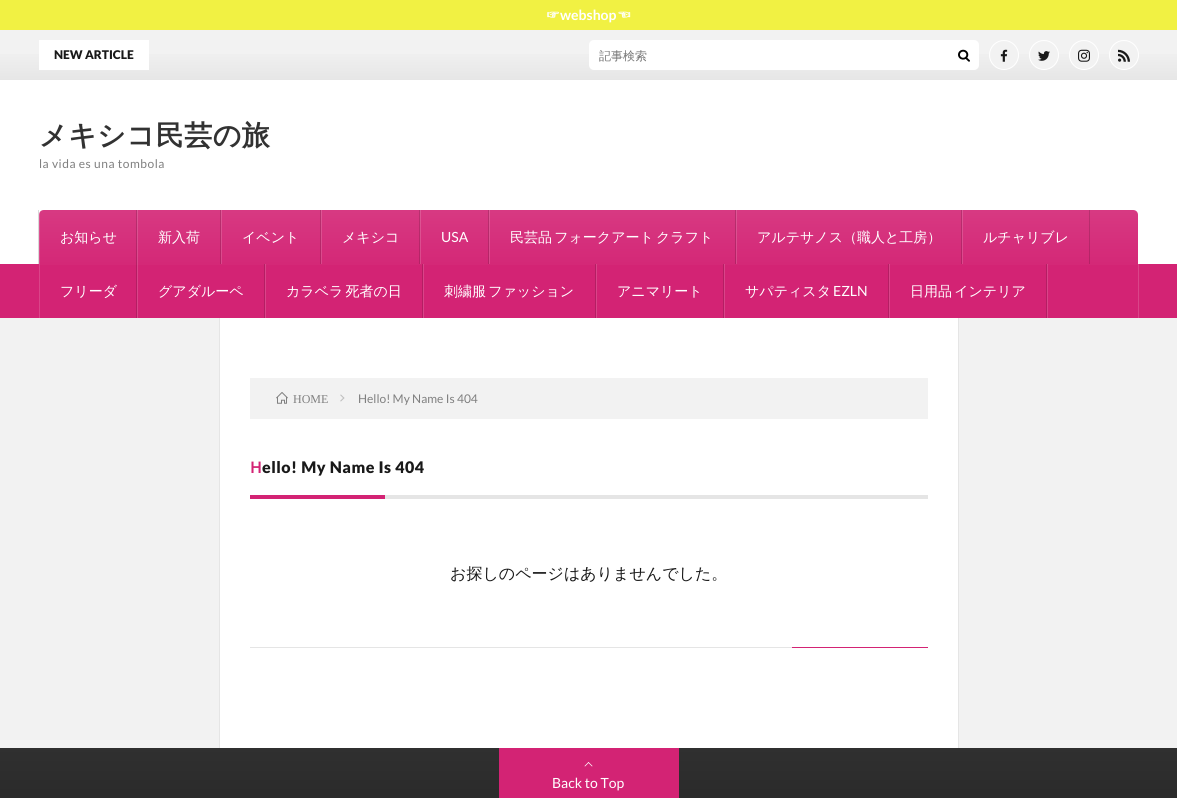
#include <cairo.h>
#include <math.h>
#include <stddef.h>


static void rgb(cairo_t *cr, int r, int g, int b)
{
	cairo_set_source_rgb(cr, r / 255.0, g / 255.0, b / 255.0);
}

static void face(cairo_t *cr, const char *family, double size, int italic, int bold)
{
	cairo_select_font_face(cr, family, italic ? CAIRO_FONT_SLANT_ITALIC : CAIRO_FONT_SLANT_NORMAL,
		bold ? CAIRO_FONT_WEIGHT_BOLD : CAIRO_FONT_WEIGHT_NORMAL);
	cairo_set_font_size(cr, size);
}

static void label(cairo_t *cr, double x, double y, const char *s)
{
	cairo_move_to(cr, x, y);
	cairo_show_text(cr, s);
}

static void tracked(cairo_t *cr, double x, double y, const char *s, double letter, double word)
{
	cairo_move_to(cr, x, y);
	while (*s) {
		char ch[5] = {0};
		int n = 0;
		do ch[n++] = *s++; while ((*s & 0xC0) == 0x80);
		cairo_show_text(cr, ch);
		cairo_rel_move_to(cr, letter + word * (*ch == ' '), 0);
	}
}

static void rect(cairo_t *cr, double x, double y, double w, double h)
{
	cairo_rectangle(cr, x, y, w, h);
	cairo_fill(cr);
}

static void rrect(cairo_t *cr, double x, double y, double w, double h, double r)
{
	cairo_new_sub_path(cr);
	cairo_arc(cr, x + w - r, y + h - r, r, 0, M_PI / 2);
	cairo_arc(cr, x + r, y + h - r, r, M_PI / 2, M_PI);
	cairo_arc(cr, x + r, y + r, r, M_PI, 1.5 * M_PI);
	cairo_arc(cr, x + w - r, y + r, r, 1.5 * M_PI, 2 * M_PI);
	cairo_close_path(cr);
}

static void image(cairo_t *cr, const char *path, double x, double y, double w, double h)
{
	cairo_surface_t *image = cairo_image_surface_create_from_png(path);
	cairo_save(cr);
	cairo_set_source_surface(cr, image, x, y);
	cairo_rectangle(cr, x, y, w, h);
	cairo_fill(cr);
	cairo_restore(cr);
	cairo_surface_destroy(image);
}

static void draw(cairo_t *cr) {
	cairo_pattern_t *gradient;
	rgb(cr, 242, 242, 242);
	cairo_paint(cr);
	rgb(cr, 241, 241, 67);
	rect(cr, 0, 0, 1177, 30);
	face(cr, "WenQuanYi Zen Hei", 14, 0, 1);
	rgb(cr, 255, 255, 255);
	label(cr, 546, 20, "☞");
	face(cr, "Lato", 14, 0, 1);
	label(cr, 560, 20, "webshop");
	face(cr, "WenQuanYi Zen Hei", 14, 0, 1);
	label(cr, 617, 20, "☜");
	gradient = cairo_pattern_create_linear(589, 30, 589, 80);
	cairo_pattern_add_color_stop_rgba(gradient, 0, 0.949, 0.949, 0.949, 1);
	cairo_pattern_add_color_stop_rgba(gradient, 0.35, 0.949, 0.949, 0.949, 1);
	cairo_pattern_add_color_stop_rgba(gradient, 1, 0.902, 0.902, 0.902, 1);
	cairo_set_source(cr, gradient);
	cairo_pattern_destroy(gradient);
	rect(cr, 0, 54, 1177, 26);
	rgb(cr, 255, 255, 255);
	rect(cr, 39, 40, 110, 30);
	face(cr, "Lato Black", 12, 0, 0);
	rgb(cr, 25, 25, 25);
	label(cr, 54, 59, "NEW ARTICLE");
	rgb(cr, 255, 255, 255);
	rrect(cr, 589, 40, 390, 30, 5);
	cairo_fill(cr);
	cairo_save(cr);
	cairo_rectangle(cr, 599, 48, 340, 17);
	cairo_clip(cr);
	face(cr, "WenQuanYi Zen Hei Medium", 12, 0, 0);
	rgb(cr, 117, 117, 117);
	label(cr, 599, 60, "記事検索");
	cairo_restore(cr);
	image(cr, "image0.png", 958, 49, 12, 13);
	rgb(cr, 242, 242, 242);
	cairo_arc(cr, 1004, 55, 14.5, 0, 2 * M_PI);
	cairo_fill_preserve(cr);
	rgb(cr, 255, 255, 255);
	cairo_set_line_width(cr, 1);
	cairo_stroke(cr);
	image(cr, "image1.png", 1000, 49, 8, 13);
	rgb(cr, 242, 242, 242);
	cairo_arc(cr, 1044, 55, 14.5, 0, 2 * M_PI);
	cairo_fill_preserve(cr);
	rgb(cr, 255, 255, 255);
	cairo_stroke(cr);
	image(cr, "image2.png", 1038, 51, 12, 10);
	rgb(cr, 242, 242, 242);
	cairo_arc(cr, 1084, 55, 14.5, 0, 2 * M_PI);
	cairo_fill_preserve(cr);
	rgb(cr, 255, 255, 255);
	cairo_stroke(cr);
	image(cr, "image3.png", 1078, 49, 12, 13);
	rgb(cr, 242, 242, 242);
	cairo_arc(cr, 1124, 55, 14.5, 0, 2 * M_PI);
	cairo_fill_preserve(cr);
	rgb(cr, 255, 255, 255);
	cairo_stroke(cr);
	image(cr, "image4.png", 1118, 49, 12, 13);
	rect(cr, 0, 80, 1177, 184);
	face(cr, "WenQuanYi Zen Hei", 28, 0, 1);
	rgb(cr, 50, 50, 50);
	tracked(cr, 39, 145, "メキシコ民芸の旅", 0.5, 0);
	face(cr, "Lato", 12, 0, 0);
	rgb(cr, 127, 127, 127);
	tracked(cr, 39, 168, "la vida es una tombola", 0.5, 0);
	rgb(cr, 211, 35, 116);
	rect(cr, 0, 264, 1177, 54);
	cairo_new_path(cr);
	cairo_move_to(cr, 44, 210);
	cairo_line_to(cr, 1133, 210);
	cairo_curve_to(cr, 1136, 210, 1138, 212, 1138, 215);
	cairo_line_to(cr, 1138, 318);
	cairo_line_to(cr, 39, 318);
	cairo_line_to(cr, 39, 215);
	cairo_curve_to(cr, 39, 212, 41, 210, 44, 210);
	cairo_close_path(cr);
	cairo_fill(cr);
	gradient = cairo_pattern_create_linear(589, 318, 589, 210);
	cairo_pattern_add_color_stop_rgba(gradient, 0, 1, 1, 1, 0);
	cairo_pattern_add_color_stop_rgba(gradient, 0.35, 1, 1, 1, 0);
	cairo_pattern_add_color_stop_rgba(gradient, 1, 1, 1, 1, 0.1);
	cairo_set_source(cr, gradient);
	cairo_pattern_destroy(gradient);
	rect(cr, 39, 210, 1099, 55);
	cairo_set_source_rgba(cr, 0, 0, 0, 0.15);
	rect(cr, 136, 210, 1, 54);
	cairo_set_source_rgba(cr, 1, 1, 1, 0.15);
	rect(cr, 39, 210, 1, 54);
	rgb(cr, 217, 217, 217);
	rect(cr, 38, 210, 1, 54);
	face(cr, "WenQuanYi Zen Hei Medium", 14, 0, 0);
	rgb(cr, 255, 255, 255);
	label(cr, 60, 242, "お知らせ");
	cairo_set_source_rgba(cr, 0, 0, 0, 0.15);
	rect(cr, 220, 210, 1, 54);
	cairo_set_source_rgba(cr, 1, 1, 1, 0.15);
	rect(cr, 137, 210, 1, 54);
	rgb(cr, 255, 255, 255);
	label(cr, 158, 242, "新入荷");
	cairo_set_source_rgba(cr, 0, 0, 0, 0.15);
	rect(cr, 320, 210, 1, 54);
	cairo_set_source_rgba(cr, 1, 1, 1, 0.15);
	rect(cr, 221, 210, 1, 54);
	rgb(cr, 255, 255, 255);
	label(cr, 242, 242, "イベント");
	cairo_set_source_rgba(cr, 0, 0, 0, 0.15);
	rect(cr, 419, 210, 1, 54);
	cairo_set_source_rgba(cr, 1, 1, 1, 0.15);
	rect(cr, 321, 210, 1, 54);
	rgb(cr, 255, 255, 255);
	label(cr, 342, 242, "メキシコ");
	cairo_set_source_rgba(cr, 0, 0, 0, 0.15);
	rect(cr, 488, 210, 1, 54);
	cairo_set_source_rgba(cr, 1, 1, 1, 0.15);
	rect(cr, 420, 210, 1, 54);
	face(cr, "Lato", 14, 0, 0);
	rgb(cr, 255, 255, 255);
	label(cr, 441, 242, "USA");
	cairo_set_source_rgba(cr, 0, 0, 0, 0.15);
	rect(cr, 735, 210, 1, 54);
	cairo_set_source_rgba(cr, 1, 1, 1, 0.15);
	rect(cr, 489, 210, 1, 54);
	face(cr, "WenQuanYi Zen Hei Medium", 14, 0, 0);
	rgb(cr, 255, 255, 255);
	tracked(cr, 510, 242, "民芸品 フォークアート クラフト", 0, -2);
	cairo_set_source_rgba(cr, 0, 0, 0, 0.15);
	rect(cr, 961, 210, 1, 54);
	cairo_set_source_rgba(cr, 1, 1, 1, 0.15);
	rect(cr, 736, 210, 1, 54);
	rgb(cr, 255, 255, 255);
	label(cr, 757, 242, "アルテサノス（職人と工房）");
	cairo_set_source_rgba(cr, 0, 0, 0, 0.15);
	rect(cr, 1089, 210, 1, 54);
	cairo_set_source_rgba(cr, 1, 1, 1, 0.15);
	rect(cr, 962, 210, 1, 54);
	rgb(cr, 255, 255, 255);
	label(cr, 983, 242, "ルチャリブレ");
	cairo_set_source_rgba(cr, 0, 0, 0, 0.15);
	rect(cr, 136, 264, 1, 54);
	cairo_set_source_rgba(cr, 1, 1, 1, 0.15);
	rect(cr, 39, 264, 1, 54);
	rgb(cr, 255, 255, 255);
	label(cr, 60, 296, "フリーダ");
	cairo_set_source_rgba(cr, 0, 0, 0, 0.15);
	rect(cr, 264, 264, 1, 54);
	cairo_set_source_rgba(cr, 1, 1, 1, 0.15);
	rect(cr, 137, 264, 1, 54);
	rgb(cr, 255, 255, 255);
	label(cr, 158, 296, "グアダルーペ");
	cairo_set_source_rgba(cr, 0, 0, 0, 0.15);
	rect(cr, 422, 264, 1, 54);
	cairo_set_source_rgba(cr, 1, 1, 1, 0.15);
	rect(cr, 265, 264, 1, 54);
	rgb(cr, 255, 255, 255);
	tracked(cr, 286, 296, "カラベラ 死者の日", 0, -2);
	cairo_set_source_rgba(cr, 0, 0, 0, 0.15);
	rect(cr, 595, 264, 1, 54);
	cairo_set_source_rgba(cr, 1, 1, 1, 0.15);
	rect(cr, 423, 264, 1, 54);
	rgb(cr, 255, 255, 255);
	tracked(cr, 444, 296, "刺繍服 ファッション", 0, -2);
	cairo_set_source_rgba(cr, 0, 0, 0, 0.15);
	rect(cr, 723, 264, 1, 54);
	cairo_set_source_rgba(cr, 1, 1, 1, 0.15);
	rect(cr, 596, 264, 1, 54);
	rgb(cr, 255, 255, 255);
	label(cr, 617, 296, "アニマリート");
	cairo_set_source_rgba(cr, 0, 0, 0, 0.15);
	rect(cr, 888, 264, 1, 54);
	cairo_set_source_rgba(cr, 1, 1, 1, 0.15);
	rect(cr, 724, 264, 1, 54);
	rgb(cr, 255, 255, 255);
	label(cr, 745, 296, "サパティスタ");
	face(cr, "Lato", 14, 0, 0);
	label(cr, 833, 296, "EZLN");
	cairo_set_source_rgba(cr, 0, 0, 0, 0.15);
	rect(cr, 1046, 264, 1, 54);
	cairo_set_source_rgba(cr, 1, 1, 1, 0.15);
	rect(cr, 889, 264, 1, 54);
	face(cr, "WenQuanYi Zen Hei Medium", 14, 0, 0);
	rgb(cr, 255, 255, 255);
	tracked(cr, 910, 296, "日用品 インテリア", 0, -2);
	cairo_set_source_rgba(cr, 1, 1, 1, 0.15);
	rect(cr, 1047, 264, 1, 54);
	rgb(cr, 218, 68, 137);
	rect(cr, 1138, 264, 1, 54);
	rgb(cr, 255, 255, 255);
	rect(cr, 220, 318, 738, 430);
	rgb(cr, 229, 229, 229);
	rect(cr, 958, 318, 1, 430);
	rect(cr, 219, 318, 1, 430);
	rgb(cr, 242, 242, 242);
	rect(cr, 250, 378, 678, 41);
	image(cr, "image5.png", 276, 392, 12, 12);
	face(cr, "Liberation Serif", 12, 0, 0);
	rgb(cr, 127, 127, 127);
	label(cr, 293, 403, "HOME");
	rgb(cr, 191, 191, 191);
	cairo_new_path(cr);
	cairo_move_to(cr, 341, 394.5);
	cairo_line_to(cr, 344.5, 398);
	cairo_line_to(cr, 343.5, 398.5);
	cairo_line_to(cr, 340, 395);
	cairo_close_path(cr);
	cairo_fill(cr);
	cairo_new_path(cr);
	cairo_move_to(cr, 343.5, 397.5);
	cairo_line_to(cr, 344.5, 398);
	cairo_line_to(cr, 341, 401.5);
	cairo_line_to(cr, 340, 401);
	cairo_close_path(cr);
	cairo_fill(cr);
	face(cr, "Lato", 12, 0, 0);
	rgb(cr, 127, 127, 127);
	label(cr, 358, 403, "Hello! My Name Is 404");
	rgb(cr, 229, 229, 229);
	rect(cr, 385, 495, 543, 4);
	face(cr, "Noto Sans SemiBold", 16, 0, 0);
	rgb(cr, 211, 35, 116);
	tracked(cr, 250, 473, "H", 0.5, 0);
	face(cr, "Lato Black", 16, 0, 0);
	rgb(cr, 25, 25, 25);
	tracked(cr, 262, 473, "ello! My Name Is 404", 0.5, 0);
	rgb(cr, 211, 35, 116);
	rect(cr, 250, 495, 135, 4);
	rect(cr, 792, 647, 136, 1);
	face(cr, "WenQuanYi Zen Hei Medium", 16, 0, 0);
	rgb(cr, 25, 25, 25);
	label(cr, 450, 579, "お探しのページはありませんでした。");
	rgb(cr, 229, 229, 229);
	rect(cr, 250, 647, 542, 1);
	gradient = cairo_pattern_create_linear(589, 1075, 589, 748);
	cairo_pattern_add_color_stop_rgba(gradient, 0, 0.098, 0.098, 0.098, 1);
	cairo_pattern_add_color_stop_rgba(gradient, 0.35, 0.098, 0.098, 0.098, 1);
	cairo_pattern_add_color_stop_rgba(gradient, 1, 0.188, 0.188, 0.188, 1);
	cairo_set_source(cr, gradient);
	cairo_pattern_destroy(gradient);
	rect(cr, 0, 748, 1177, 50);
	rgb(cr, 211, 35, 116);
	rect(cr, 499, 748, 180, 50);
	rgb(cr, 255, 255, 255);
	cairo_new_path(cr);
	cairo_move_to(cr, 588.5, 762);
	cairo_line_to(cr, 592.5, 766);
	cairo_line_to(cr, 592, 766.5);
	cairo_line_to(cr, 588, 762.5);
	cairo_close_path(cr);
	cairo_fill(cr);
	cairo_new_path(cr);
	cairo_move_to(cr, 588.5, 762);
	cairo_line_to(cr, 589, 762.5);
	cairo_line_to(cr, 585, 766.5);
	cairo_line_to(cr, 584.5, 766);
	cairo_close_path(cr);
	cairo_fill(cr);
	face(cr, "Lato", 14, 0, 0);
	label(cr, 552, 788, "Back to Top");
}

int main(void) {
	cairo_surface_t *surface = cairo_image_surface_create(CAIRO_FORMAT_RGB24, 1177, 798);
	cairo_t *cr = cairo_create(surface);
	cairo_font_options_t *options = cairo_font_options_create();
	cairo_font_options_set_hint_metrics(options, CAIRO_HINT_METRICS_OFF);
	cairo_font_options_set_hint_style(options, CAIRO_HINT_STYLE_NONE);
	cairo_set_font_options(cr, options);
	cairo_set_miter_limit(cr, 4);
	draw(cr);
	cairo_surface_write_to_png(surface, "render.png");
	cairo_font_options_destroy(options);
	cairo_destroy(cr);
	cairo_surface_destroy(surface);
	return 0;
}
